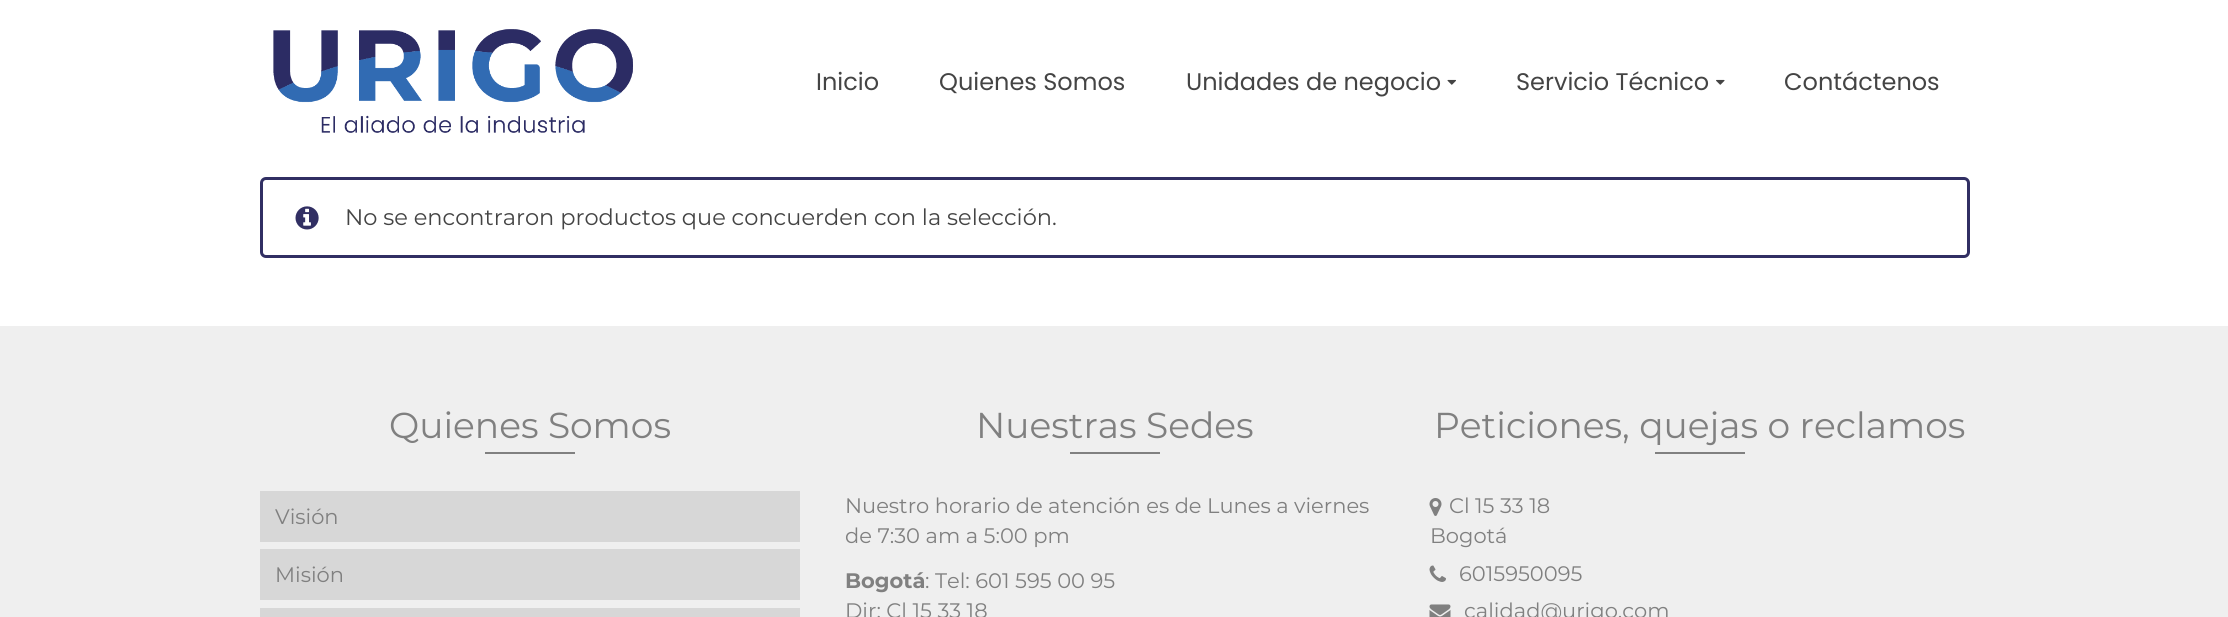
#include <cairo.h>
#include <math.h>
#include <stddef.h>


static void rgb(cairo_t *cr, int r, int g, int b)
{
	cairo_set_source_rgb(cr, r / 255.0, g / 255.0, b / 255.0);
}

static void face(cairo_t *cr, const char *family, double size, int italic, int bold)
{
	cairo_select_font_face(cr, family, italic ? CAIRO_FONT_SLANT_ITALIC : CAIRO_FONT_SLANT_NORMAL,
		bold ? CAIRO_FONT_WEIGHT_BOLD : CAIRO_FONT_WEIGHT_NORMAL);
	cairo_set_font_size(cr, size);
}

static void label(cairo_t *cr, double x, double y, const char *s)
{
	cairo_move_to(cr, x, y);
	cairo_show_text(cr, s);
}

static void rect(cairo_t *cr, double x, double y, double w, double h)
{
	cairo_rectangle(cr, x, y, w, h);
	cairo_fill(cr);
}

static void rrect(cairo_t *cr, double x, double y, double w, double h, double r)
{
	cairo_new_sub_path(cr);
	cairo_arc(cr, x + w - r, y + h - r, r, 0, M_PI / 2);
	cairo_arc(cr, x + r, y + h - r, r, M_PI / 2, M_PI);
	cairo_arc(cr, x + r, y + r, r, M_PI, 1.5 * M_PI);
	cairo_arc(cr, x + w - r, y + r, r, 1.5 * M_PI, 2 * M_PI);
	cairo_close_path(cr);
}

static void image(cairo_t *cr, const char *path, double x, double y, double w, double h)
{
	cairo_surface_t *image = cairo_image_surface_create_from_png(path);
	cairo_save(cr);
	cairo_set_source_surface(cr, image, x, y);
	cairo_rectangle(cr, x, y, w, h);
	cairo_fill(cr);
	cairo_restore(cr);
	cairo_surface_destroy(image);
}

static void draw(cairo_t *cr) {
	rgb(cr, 255, 255, 255);
	cairo_paint(cr);
	image(cr, "image0.png", 273, 29, 360, 104);
	face(cr, "Poppins", 24, 0, 0);
	rgb(cr, 68, 68, 68);
	label(cr, 816, 90, "Inicio");
	label(cr, 939, 90, "Quienes Somos");
	label(cr, 1186, 90, "Unidades de negocio");
	image(cr, "image1.png", 1447, 79, 9, 6);
	label(cr, 1516, 90, "Servicio Técnico");
	image(cr, "image2.png", 1716, 79, 9, 6);
	label(cr, 1784, 90, "Contáctenos");
	rrect(cr, 261.5, 178.5, 1707, 78, 4.5);
	rgb(cr, 49, 47, 99);
	cairo_set_line_width(cr, 3);
	cairo_stroke(cr);
	image(cr, "image3.png", 295, 206, 24, 24);
	face(cr, "Montserrat", 22.5, 0, 0);
	rgb(cr, 68, 68, 68);
	label(cr, 345, 225, "No se encontraron productos que concuerden con la selección.");
	rgb(cr, 239, 239, 239);
	rect(cr, 0, 326, 2228, 291);
	face(cr, "Montserrat", 36, 0, 0);
	rgb(cr, 128, 128, 128);
	label(cr, 389, 438, "Quienes Somos");
	rect(cr, 485, 452, 90, 2);
	rgb(cr, 215, 215, 215);
	rect(cr, 260, 491, 540, 51);
	face(cr, "Montserrat", 21, 0, 0);
	rgb(cr, 128, 128, 128);
	label(cr, 275, 524, "Visión");
	rgb(cr, 215, 215, 215);
	rect(cr, 260, 549, 540, 51);
	rgb(cr, 128, 128, 128);
	label(cr, 275, 582, "Misión");
	rgb(cr, 215, 215, 215);
	rect(cr, 260, 608, 540, 9);
	face(cr, "Montserrat", 36, 0, 0);
	rgb(cr, 128, 128, 128);
	label(cr, 976, 438, "Nuestras Sedes");
	rect(cr, 1070, 452, 90, 2);
	face(cr, "Montserrat", 21, 0, 0);
	label(cr, 845, 513, "Nuestro horario de atención es de Lunes a viernes");
	label(cr, 845, 543, "de 7:30 am a 5:00 pm");
	face(cr, "Montserrat", 21, 0, 1);
	label(cr, 845, 588, "Bogotá");
	face(cr, "Montserrat", 21, 0, 0);
	label(cr, 925, 588, ": Tel: 601 595 00 95");
	label(cr, 845, 618, "Dir: Cl 15 33 18");
	face(cr, "Montserrat", 36, 0, 0);
	label(cr, 1434, 438, "Peticiones, quejas o reclamos");
	rect(cr, 1655, 452, 90, 2);
	image(cr, "image4.png", 1429, 498, 13, 18);
	face(cr, "Montserrat", 21, 0, 0);
	label(cr, 1449, 513, "Cl 15 33 18");
	label(cr, 1430, 543, "Bogotá");
	image(cr, "image5.png", 1429, 565, 17, 17);
	label(cr, 1459, 581, "6015950095");
	image(cr, "image6.png", 1429, 604, 22, 13);
	label(cr, 1464, 618, "calidad@urigo.com");
}

int main(void) {
	cairo_surface_t *surface = cairo_image_surface_create(CAIRO_FORMAT_RGB24, 2228, 617);
	cairo_t *cr = cairo_create(surface);
	cairo_font_options_t *options = cairo_font_options_create();
	cairo_font_options_set_hint_metrics(options, CAIRO_HINT_METRICS_OFF);
	cairo_font_options_set_hint_style(options, CAIRO_HINT_STYLE_NONE);
	cairo_set_font_options(cr, options);
	cairo_set_miter_limit(cr, 4);
	draw(cr);
	cairo_surface_write_to_png(surface, "render.png");
	cairo_font_options_destroy(options);
	cairo_destroy(cr);
	cairo_surface_destroy(surface);
	return 0;
}
